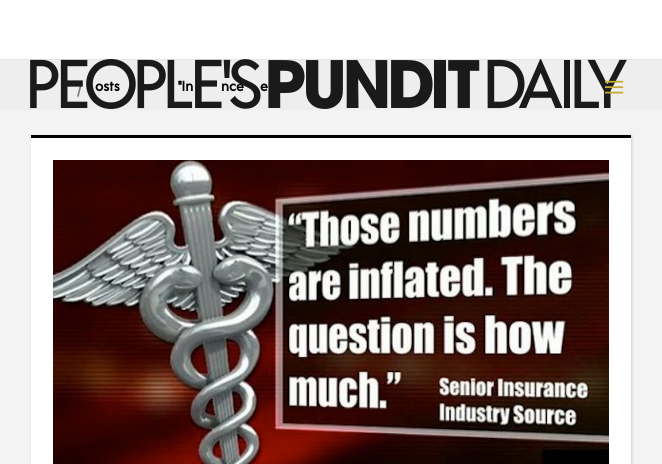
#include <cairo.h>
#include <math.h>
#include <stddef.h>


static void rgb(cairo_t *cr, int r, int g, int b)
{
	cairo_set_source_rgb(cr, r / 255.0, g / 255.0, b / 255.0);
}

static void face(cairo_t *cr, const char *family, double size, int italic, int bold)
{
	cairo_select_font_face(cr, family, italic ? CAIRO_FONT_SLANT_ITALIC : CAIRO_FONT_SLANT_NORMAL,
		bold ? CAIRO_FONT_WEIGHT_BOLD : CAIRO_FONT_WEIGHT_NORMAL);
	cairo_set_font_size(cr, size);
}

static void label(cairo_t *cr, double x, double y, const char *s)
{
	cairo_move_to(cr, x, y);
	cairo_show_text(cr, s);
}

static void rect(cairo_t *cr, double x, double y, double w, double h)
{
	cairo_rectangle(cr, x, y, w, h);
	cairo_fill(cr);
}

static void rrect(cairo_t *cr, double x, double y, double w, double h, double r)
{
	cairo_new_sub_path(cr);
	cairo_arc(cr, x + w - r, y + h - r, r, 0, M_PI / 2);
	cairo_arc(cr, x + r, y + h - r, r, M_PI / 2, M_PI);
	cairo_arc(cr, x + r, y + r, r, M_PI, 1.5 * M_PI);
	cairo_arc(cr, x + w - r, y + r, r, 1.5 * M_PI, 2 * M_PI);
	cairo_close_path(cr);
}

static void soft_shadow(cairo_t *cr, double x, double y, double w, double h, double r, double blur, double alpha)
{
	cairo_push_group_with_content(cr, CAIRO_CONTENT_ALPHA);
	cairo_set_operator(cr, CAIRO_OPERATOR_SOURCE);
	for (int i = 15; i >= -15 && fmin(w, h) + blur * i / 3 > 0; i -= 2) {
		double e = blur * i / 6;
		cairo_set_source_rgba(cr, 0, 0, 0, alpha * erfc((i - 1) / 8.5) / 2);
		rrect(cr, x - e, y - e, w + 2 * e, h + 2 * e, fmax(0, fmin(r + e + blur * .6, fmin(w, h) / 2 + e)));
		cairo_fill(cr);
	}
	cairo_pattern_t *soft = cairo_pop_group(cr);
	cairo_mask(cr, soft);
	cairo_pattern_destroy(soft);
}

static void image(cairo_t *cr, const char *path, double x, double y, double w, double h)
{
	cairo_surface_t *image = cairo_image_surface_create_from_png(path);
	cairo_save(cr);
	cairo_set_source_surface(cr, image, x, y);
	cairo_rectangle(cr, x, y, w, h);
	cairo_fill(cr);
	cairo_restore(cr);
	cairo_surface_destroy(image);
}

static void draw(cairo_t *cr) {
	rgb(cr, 243, 243, 243);
	cairo_paint(cr);
	rgb(cr, 255, 255, 255);
	rect(cr, 0, 0, 662, 59);
	rgb(cr, 228, 228, 228);
	rect(cr, 0, 59, 662, 1);
	rgb(cr, 238, 238, 238);
	rect(cr, 0, 60, 662, 50);
	face(cr, "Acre", 14, 0, 1);
	rgb(cr, 126, 124, 124);
	label(cr, 77, 95, "/");
	rgb(cr, 2, 2, 2);
	label(cr, 95, 91, "osts");
	label(cr, 178, 91, "\"In");
	label(cr, 221, 91, "nce");
	label(cr, 260, 91, "e");
	image(cr, "image0.png", 30, 59, 597, 50);
	image(cr, "image1.png", 605, 80, 19, 14);
	rgb(cr, 206, 204, 204);
	soft_shadow(cr, 32, 136, 600, 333, 0, 1.5, 1);
	rgb(cr, 255, 255, 255);
	rect(cr, 31, 138, 600, 326);
	rgb(cr, 0, 0, 0);
	rect(cr, 31, 135, 600, 3);
	image(cr, "image2.png", 53, 160, 556, 304);
}

int main(void) {
	cairo_surface_t *surface = cairo_image_surface_create(CAIRO_FORMAT_RGB24, 662, 464);
	cairo_t *cr = cairo_create(surface);
	cairo_font_options_t *options = cairo_font_options_create();
	cairo_font_options_set_hint_metrics(options, CAIRO_HINT_METRICS_OFF);
	cairo_font_options_set_hint_style(options, CAIRO_HINT_STYLE_NONE);
	cairo_set_font_options(cr, options);
	cairo_set_miter_limit(cr, 4);
	draw(cr);
	cairo_surface_write_to_png(surface, "render.png");
	cairo_font_options_destroy(options);
	cairo_destroy(cr);
	cairo_surface_destroy(surface);
	return 0;
}
